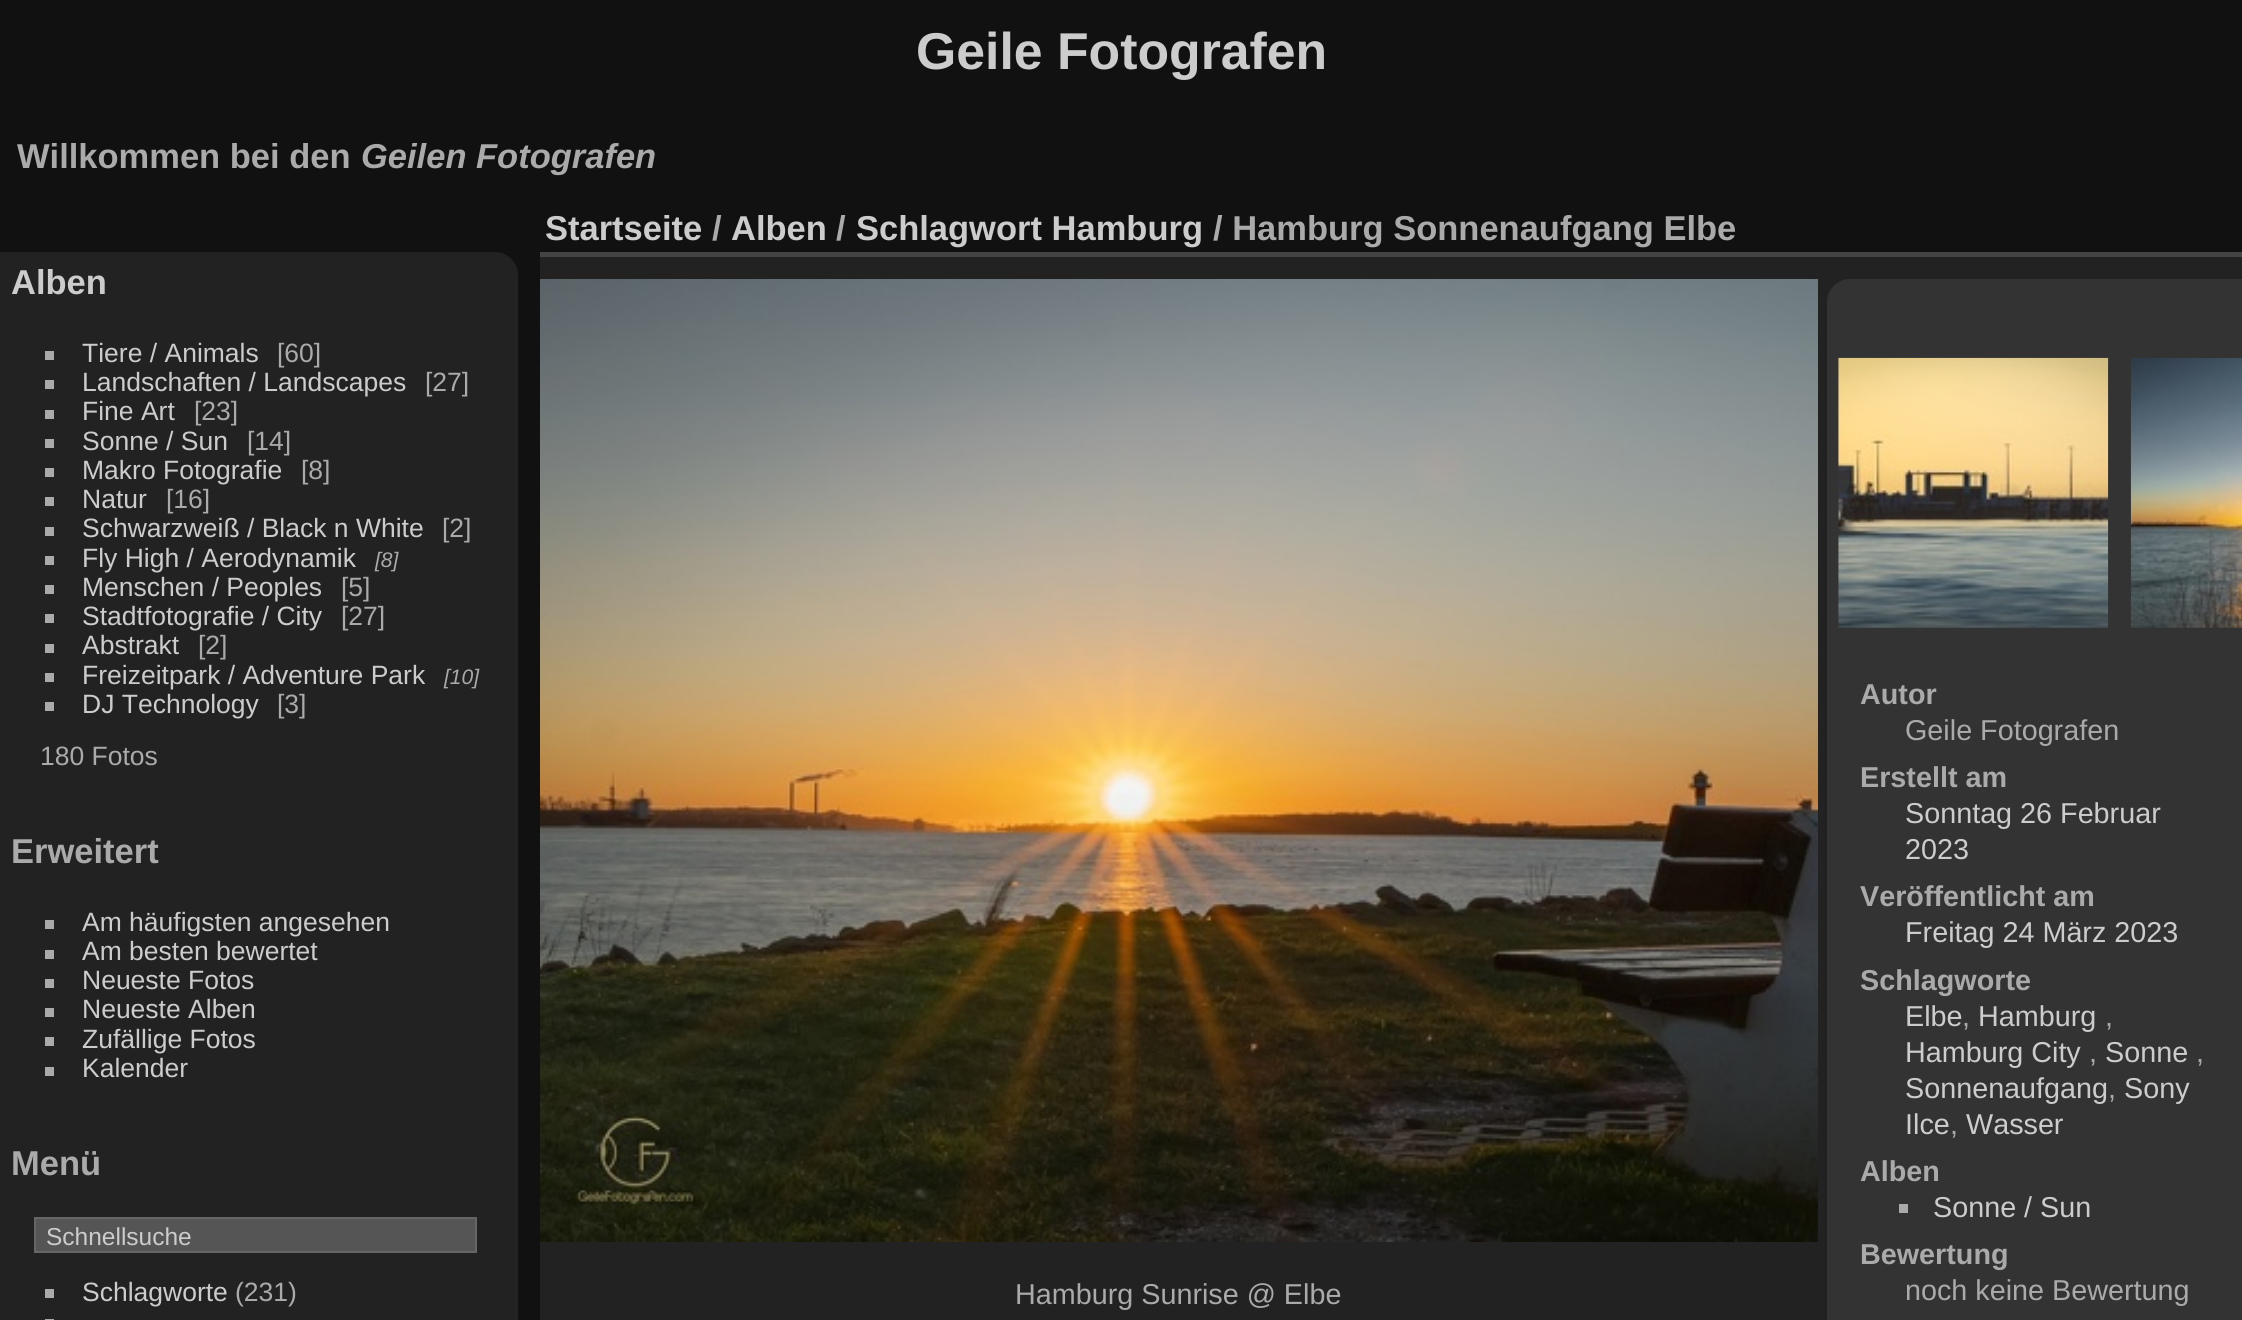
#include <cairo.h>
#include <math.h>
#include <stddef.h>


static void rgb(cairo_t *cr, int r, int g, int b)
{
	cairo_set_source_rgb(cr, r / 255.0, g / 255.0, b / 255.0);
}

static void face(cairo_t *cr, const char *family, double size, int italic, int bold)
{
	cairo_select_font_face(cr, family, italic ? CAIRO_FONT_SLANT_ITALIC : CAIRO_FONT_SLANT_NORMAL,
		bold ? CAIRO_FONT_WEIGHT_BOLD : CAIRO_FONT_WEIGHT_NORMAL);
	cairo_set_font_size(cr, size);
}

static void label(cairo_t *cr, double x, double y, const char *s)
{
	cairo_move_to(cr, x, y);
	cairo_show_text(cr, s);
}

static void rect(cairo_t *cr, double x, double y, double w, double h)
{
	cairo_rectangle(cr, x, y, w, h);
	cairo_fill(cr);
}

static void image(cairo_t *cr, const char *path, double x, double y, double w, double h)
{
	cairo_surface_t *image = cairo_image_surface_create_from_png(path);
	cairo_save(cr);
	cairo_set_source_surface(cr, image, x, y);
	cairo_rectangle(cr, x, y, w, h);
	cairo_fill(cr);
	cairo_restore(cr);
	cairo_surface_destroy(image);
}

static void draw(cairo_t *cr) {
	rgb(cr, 17, 17, 17);
	cairo_paint(cr);
	face(cr, "Liberation Sans", 51.75, 0, 1);
	rgb(cr, 204, 204, 204);
	label(cr, 916, 69, "Geile Fotografen");
	face(cr, "Liberation Sans", 34.5, 0, 1);
	rgb(cr, 170, 170, 170);
	label(cr, 17, 168, "Willkommen bei den");
	face(cr, "Liberation Sans", 34.5, 1, 1);
	label(cr, 361, 168, "Geilen Fotografen");
	rgb(cr, 34, 34, 34);
	cairo_new_path(cr);
	cairo_move_to(cr, 0, 252);
	cairo_line_to(cr, 495, 252);
	cairo_curve_to(cr, 507.5, 252, 518, 262.5, 518, 275);
	cairo_line_to(cr, 518, 1320);
	cairo_curve_to(cr, 518, 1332.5, 507.5, 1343, 495, 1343);
	cairo_line_to(cr, 0, 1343);
	cairo_close_path(cr);
	cairo_fill(cr);
	face(cr, "Liberation Sans", 34.5, 0, 1);
	rgb(cr, 204, 204, 204);
	label(cr, 11, 294, "Alben");
	rgb(cr, 170, 170, 170);
	rect(cr, 45, 351, 9, 9);
	face(cr, "Liberation Sans", 26.5, 0, 0);
	rgb(cr, 204, 204, 204);
	label(cr, 82, 362, "Tiere / Animals");
	rgb(cr, 170, 170, 170);
	label(cr, 277, 362, "[60]");
	rect(cr, 45, 380, 9, 9);
	rgb(cr, 204, 204, 204);
	label(cr, 82, 391, "Landschaften / Landscapes");
	rgb(cr, 170, 170, 170);
	label(cr, 425, 391, "[27]");
	rect(cr, 45, 410, 9, 9);
	rgb(cr, 204, 204, 204);
	label(cr, 82, 420, "Fine Art");
	rgb(cr, 170, 170, 170);
	label(cr, 194, 420, "[23]");
	rect(cr, 45, 439, 9, 9);
	rgb(cr, 204, 204, 204);
	label(cr, 82, 450, "Sonne / Sun");
	rgb(cr, 170, 170, 170);
	label(cr, 247, 450, "[14]");
	rect(cr, 45, 468, 9, 9);
	rgb(cr, 204, 204, 204);
	label(cr, 82, 479, "Makro Fotografie");
	rgb(cr, 170, 170, 170);
	label(cr, 301, 479, "[8]");
	rect(cr, 45, 497, 9, 9);
	rgb(cr, 204, 204, 204);
	label(cr, 82, 508, "Natur");
	rgb(cr, 170, 170, 170);
	label(cr, 166, 508, "[16]");
	rect(cr, 45, 527, 9, 9);
	rgb(cr, 204, 204, 204);
	label(cr, 82, 537, "Schwarzweiß / Black n White");
	rgb(cr, 170, 170, 170);
	label(cr, 442, 537, "[2]");
	rect(cr, 45, 556, 9, 9);
	rgb(cr, 204, 204, 204);
	label(cr, 82, 567, "Fly High / Aerodynamik");
	face(cr, "Liberation Sans", 21, 1, 0);
	rgb(cr, 170, 170, 170);
	label(cr, 375, 567, "[8]");
	rect(cr, 45, 585, 9, 9);
	face(cr, "Liberation Sans", 26.5, 0, 0);
	rgb(cr, 204, 204, 204);
	label(cr, 82, 596, "Menschen / Peoples");
	rgb(cr, 170, 170, 170);
	label(cr, 341, 596, "[5]");
	rect(cr, 45, 614, 9, 9);
	rgb(cr, 204, 204, 204);
	label(cr, 82, 625, "Stadtfotografie / City");
	rgb(cr, 170, 170, 170);
	label(cr, 341, 625, "[27]");
	rect(cr, 45, 644, 9, 9);
	rgb(cr, 204, 204, 204);
	label(cr, 82, 654, "Abstrakt");
	rgb(cr, 170, 170, 170);
	label(cr, 198, 654, "[2]");
	rect(cr, 45, 673, 9, 9);
	rgb(cr, 204, 204, 204);
	label(cr, 82, 684, "Freizeitpark / Adventure Park");
	face(cr, "Liberation Sans", 21, 1, 0);
	rgb(cr, 170, 170, 170);
	label(cr, 444, 684, "[10]");
	rect(cr, 45, 702, 9, 9);
	face(cr, "Liberation Sans", 26.5, 0, 0);
	rgb(cr, 204, 204, 204);
	label(cr, 82, 713, "DJ Technology");
	rgb(cr, 170, 170, 170);
	label(cr, 277, 713, "[3]");
	label(cr, 40, 765, "180 Fotos");
	face(cr, "Liberation Sans", 34.5, 0, 1);
	label(cr, 11, 863, "Erweitert");
	rect(cr, 45, 920, 9, 9);
	face(cr, "Liberation Sans", 26.5, 0, 0);
	rgb(cr, 204, 204, 204);
	label(cr, 82, 931, "Am häufigsten angesehen");
	rgb(cr, 170, 170, 170);
	rect(cr, 45, 950, 9, 9);
	rgb(cr, 204, 204, 204);
	label(cr, 82, 960, "Am besten bewertet");
	rgb(cr, 170, 170, 170);
	rect(cr, 45, 979, 9, 9);
	rgb(cr, 204, 204, 204);
	label(cr, 82, 989, "Neueste Fotos");
	rgb(cr, 170, 170, 170);
	rect(cr, 45, 1008, 9, 9);
	rgb(cr, 204, 204, 204);
	label(cr, 82, 1018, "Neueste Alben");
	rgb(cr, 170, 170, 170);
	rect(cr, 45, 1037, 9, 9);
	rgb(cr, 204, 204, 204);
	label(cr, 82, 1048, "Zufällige Fotos");
	rgb(cr, 170, 170, 170);
	rect(cr, 45, 1067, 9, 9);
	rgb(cr, 204, 204, 204);
	label(cr, 82, 1077, "Kalender");
	face(cr, "Liberation Sans", 34.5, 0, 1);
	rgb(cr, 170, 170, 170);
	label(cr, 11, 1175, "Menü");
	rgb(cr, 85, 85, 85);
	cairo_rectangle(cr, 35, 1218, 441, 34);
	cairo_fill_preserve(cr);
	rgb(cr, 102, 102, 102);
	cairo_stroke(cr);
	face(cr, "Liberation Sans", 24.5, 0, 0);
	rgb(cr, 204, 204, 204);
	label(cr, 46, 1245, "Schnellsuche");
	rgb(cr, 170, 170, 170);
	rect(cr, 45, 1289, 9, 9);
	face(cr, "Liberation Sans", 26.5, 0, 0);
	rgb(cr, 204, 204, 204);
	label(cr, 82, 1301, "Schlagworte");
	rgb(cr, 170, 170, 170);
	label(cr, 235, 1301, "(231)");
	rect(cr, 45, 1319, 9, 1);
	rgb(cr, 34, 34, 34);
	rect(cr, 540, 257, 1702, 1063);
	rgb(cr, 68, 68, 68);
	rect(cr, 540, 252, 1702, 5);
	face(cr, "Liberation Sans", 34.5, 0, 1);
	rgb(cr, 204, 204, 204);
	label(cr, 545, 240, "Startseite");
	rgb(cr, 170, 170, 170);
	label(cr, 712, 240, "/");
	rgb(cr, 204, 204, 204);
	label(cr, 731, 240, "Alben");
	rgb(cr, 170, 170, 170);
	label(cr, 836, 240, "/");
	rgb(cr, 204, 204, 204);
	label(cr, 856, 240, "Schlagwort Hamburg");
	rgb(cr, 170, 170, 170);
	label(cr, 1213, 240, "/ Hamburg Sonnenaufgang Elbe");
	image(cr, "image0.png", 540, 279, 1278, 963);
	face(cr, "Liberation Sans", 28.75, 0, 0);
	label(cr, 1015, 1304, "Hamburg Sunrise @ Elbe");
	rgb(cr, 51, 51, 51);
	cairo_new_path(cr);
	cairo_move_to(cr, 1850, 279);
	cairo_line_to(cr, 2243, 279);
	cairo_line_to(cr, 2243, 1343);
	cairo_line_to(cr, 1850, 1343);
	cairo_curve_to(cr, 1837.5, 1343, 1827, 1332.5, 1827, 1320);
	cairo_line_to(cr, 1827, 302);
	cairo_curve_to(cr, 1827, 289.5, 1837.5, 279, 1850, 279);
	cairo_close_path(cr);
	cairo_fill(cr);
	image(cr, "image1.png", 1838, 357, 271, 271);
	image(cr, "image2.png", 2130, 358, 112, 270);
	face(cr, "Liberation Sans", 28.75, 0, 1);
	rgb(cr, 170, 170, 170);
	label(cr, 1860, 704, "Autor");
	face(cr, "Liberation Sans", 28.75, 0, 0);
	label(cr, 1905, 740, "Geile Fotografen");
	face(cr, "Liberation Sans", 28.75, 0, 1);
	label(cr, 1860, 787, "Erstellt am");
	face(cr, "Liberation Sans", 28.75, 0, 0);
	rgb(cr, 204, 204, 204);
	label(cr, 1905, 823, "Sonntag 26 Februar");
	label(cr, 1905, 859, "2023");
	face(cr, "Liberation Sans", 28.75, 0, 1);
	rgb(cr, 170, 170, 170);
	label(cr, 1860, 906, "Veröffentlicht am");
	face(cr, "Liberation Sans", 28.75, 0, 0);
	rgb(cr, 204, 204, 204);
	label(cr, 1905, 942, "Freitag 24 März 2023");
	face(cr, "Liberation Sans", 28.75, 0, 1);
	rgb(cr, 170, 170, 170);
	label(cr, 1860, 990, "Schlagworte");
	face(cr, "Liberation Sans", 28.75, 0, 0);
	rgb(cr, 204, 204, 204);
	label(cr, 1905, 1026, "Elbe");
	rgb(cr, 170, 170, 170);
	label(cr, 1962, 1026, ",");
	rgb(cr, 204, 204, 204);
	label(cr, 1978, 1026, "Hamburg");
	rgb(cr, 170, 170, 170);
	label(cr, 2105, 1026, ",");
	rgb(cr, 204, 204, 204);
	label(cr, 1905, 1062, "Hamburg City");
	rgb(cr, 170, 170, 170);
	label(cr, 2089, 1062, ",");
	rgb(cr, 204, 204, 204);
	label(cr, 2105, 1062, "Sonne");
	rgb(cr, 170, 170, 170);
	label(cr, 2196, 1062, ",");
	rgb(cr, 204, 204, 204);
	label(cr, 1905, 1098, "Sonnenaufgang");
	rgb(cr, 170, 170, 170);
	label(cr, 2108, 1098, ",");
	rgb(cr, 204, 204, 204);
	label(cr, 2124, 1098, "Sony");
	label(cr, 1905, 1134, "Ilce");
	rgb(cr, 170, 170, 170);
	label(cr, 1950, 1134, ",");
	rgb(cr, 204, 204, 204);
	label(cr, 1966, 1134, "Wasser");
	face(cr, "Liberation Sans", 28.75, 0, 1);
	rgb(cr, 170, 170, 170);
	label(cr, 1860, 1181, "Alben");
	rect(cr, 1899, 1204, 9, 9);
	face(cr, "Liberation Sans", 28.75, 0, 0);
	rgb(cr, 204, 204, 204);
	label(cr, 1933, 1217, "Sonne / Sun");
	face(cr, "Liberation Sans", 28.75, 0, 1);
	rgb(cr, 170, 170, 170);
	label(cr, 1860, 1264, "Bewertung");
	face(cr, "Liberation Sans", 28.75, 0, 0);
	label(cr, 1905, 1300, "noch keine Bewertung");
}

int main(void) {
	cairo_surface_t *surface = cairo_image_surface_create(CAIRO_FORMAT_RGB24, 2242, 1320);
	cairo_t *cr = cairo_create(surface);
	cairo_font_options_t *options = cairo_font_options_create();
	cairo_font_options_set_hint_metrics(options, CAIRO_HINT_METRICS_OFF);
	cairo_font_options_set_hint_style(options, CAIRO_HINT_STYLE_NONE);
	cairo_set_font_options(cr, options);
	cairo_set_miter_limit(cr, 4);
	draw(cr);
	cairo_surface_write_to_png(surface, "render.png");
	cairo_font_options_destroy(options);
	cairo_destroy(cr);
	cairo_surface_destroy(surface);
	return 0;
}
